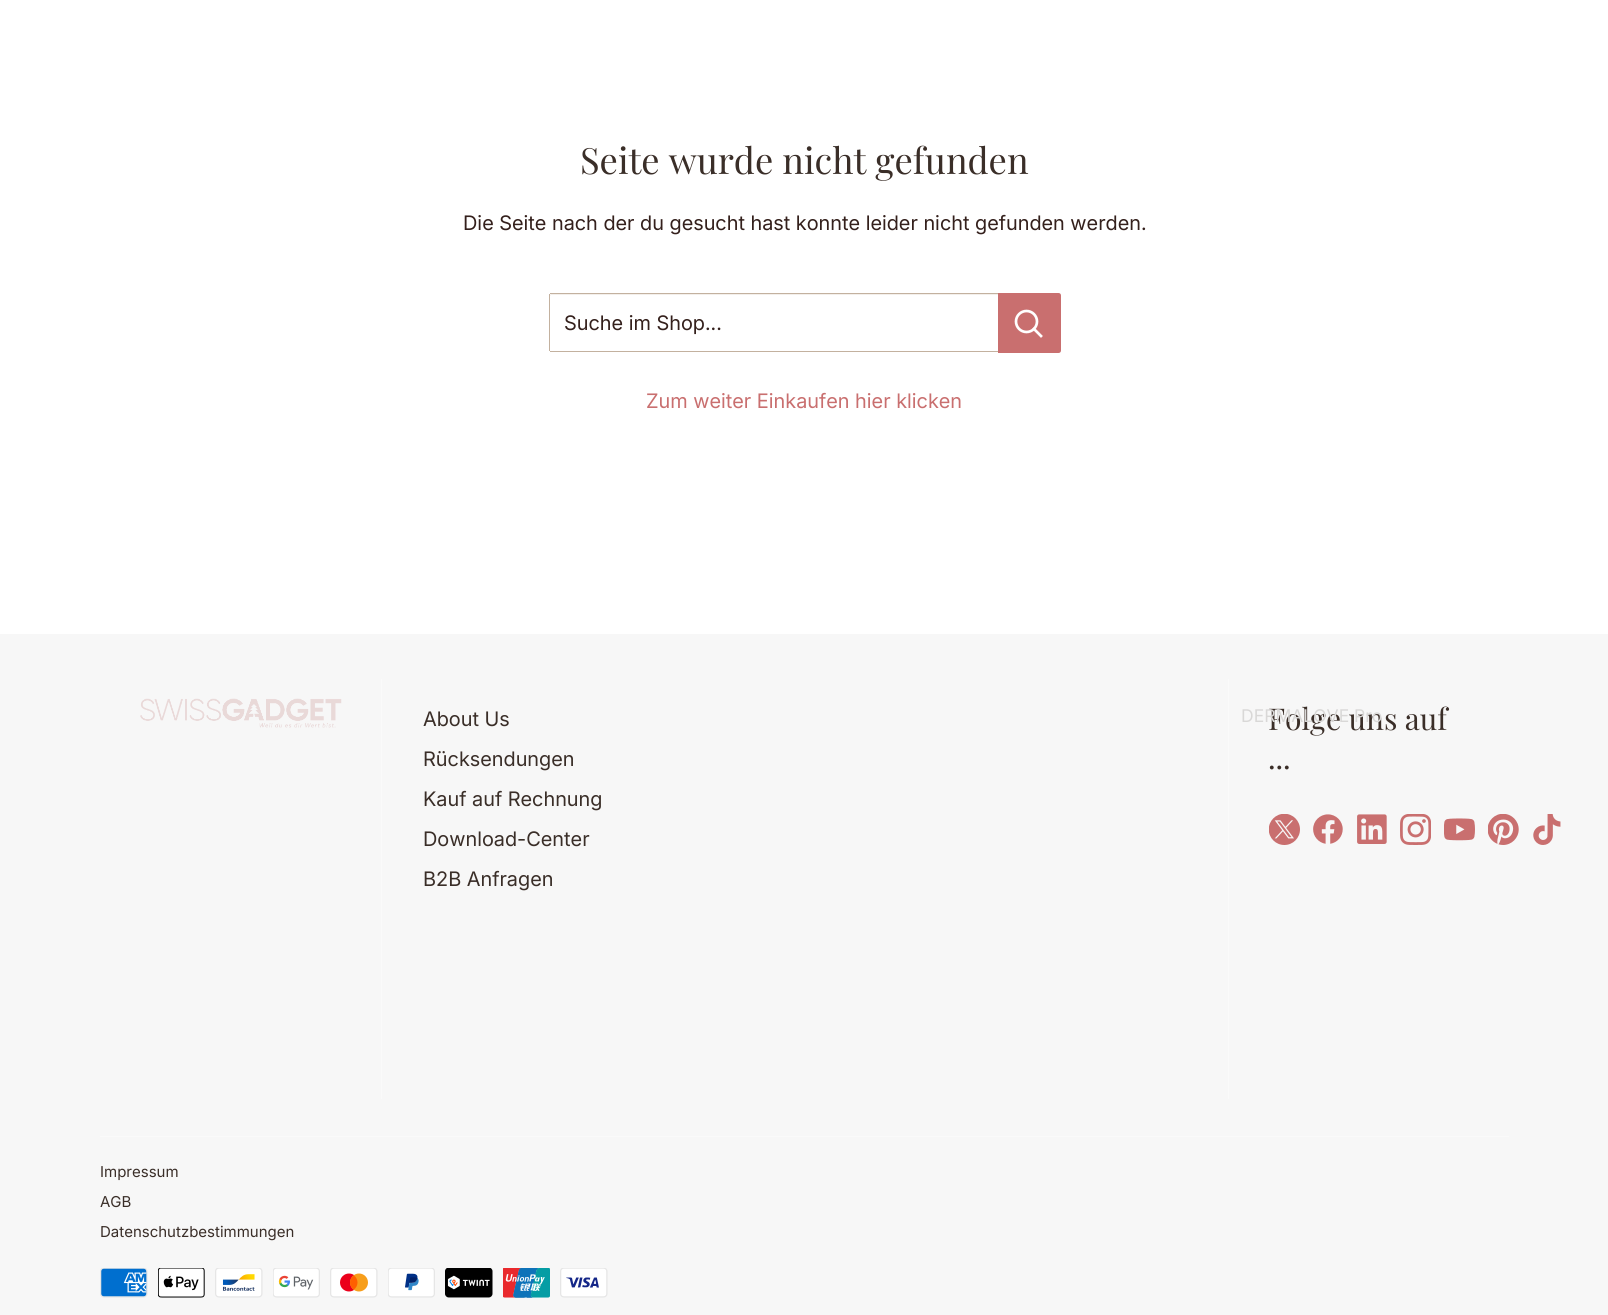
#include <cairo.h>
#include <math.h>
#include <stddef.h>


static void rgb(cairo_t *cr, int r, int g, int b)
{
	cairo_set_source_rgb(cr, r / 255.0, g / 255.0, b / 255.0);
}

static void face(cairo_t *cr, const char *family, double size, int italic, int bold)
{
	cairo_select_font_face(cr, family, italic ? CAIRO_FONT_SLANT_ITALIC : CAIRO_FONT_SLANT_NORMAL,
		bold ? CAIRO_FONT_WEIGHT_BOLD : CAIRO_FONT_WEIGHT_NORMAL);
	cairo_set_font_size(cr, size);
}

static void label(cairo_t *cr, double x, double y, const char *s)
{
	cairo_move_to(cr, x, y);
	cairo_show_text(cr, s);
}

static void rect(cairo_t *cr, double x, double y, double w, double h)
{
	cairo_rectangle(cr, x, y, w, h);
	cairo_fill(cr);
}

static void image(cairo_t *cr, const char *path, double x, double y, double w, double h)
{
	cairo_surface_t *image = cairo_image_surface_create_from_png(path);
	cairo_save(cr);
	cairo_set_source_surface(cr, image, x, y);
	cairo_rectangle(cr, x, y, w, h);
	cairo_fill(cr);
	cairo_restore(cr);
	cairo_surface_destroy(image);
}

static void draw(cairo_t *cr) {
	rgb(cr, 255, 255, 255);
	cairo_paint(cr);
	face(cr, "Playfair Display", 36.25, 0, 0);
	rgb(cr, 58, 46, 40);
	label(cr, 580, 174, "Seite wurde nicht gefunden");
	face(cr, "Inter", 20, 0, 0);
	rgb(cr, 52, 32, 28);
	label(cr, 463, 230, "Die Seite nach der du gesucht hast konnte leider nicht gefunden werden.");
	rgb(cr, 243, 239, 235);
	cairo_new_path(cr);
	cairo_move_to(cr, 551, 295);
	cairo_line_to(cr, 998, 295);
	cairo_line_to(cr, 998, 294);
	cairo_line_to(cr, 551, 294);
	cairo_line_to(cr, 550, 295);
	cairo_line_to(cr, 550, 296);
	cairo_close_path(cr);
	cairo_fill(cr);
	rgb(cr, 195, 177, 159);
	rect(cr, 550, 293, 448, 1);
	rect(cr, 550, 351, 448, 1);
	rect(cr, 549, 294, 1, 57);
	rgb(cr, 52, 32, 28);
	label(cr, 564, 330, "Suche im Shop...");
	rgb(cr, 201, 111, 111);
	cairo_new_path(cr);
	cairo_move_to(cr, 998, 293);
	cairo_line_to(cr, 1058.5, 293);
	cairo_curve_to(cr, 1060, 293, 1061, 294, 1061, 295.5);
	cairo_line_to(cr, 1061, 350.5);
	cairo_curve_to(cr, 1061, 352, 1060, 353, 1058.5, 353);
	cairo_line_to(cr, 998, 353);
	cairo_close_path(cr);
	cairo_fill(cr);
	cairo_new_path(cr);
	cairo_move_to(cr, 1041, 336);
	cairo_line_to(cr, 1034, 329);
	rgb(cr, 255, 255, 255);
	cairo_set_line_width(cr, 2.7);
	cairo_set_line_cap(cr, CAIRO_LINE_CAP_SQUARE);
	cairo_stroke(cr);
	cairo_arc(cr, 1026.5, 321.5, 10.5, 0, 2 * M_PI);
	cairo_set_line_cap(cr, CAIRO_LINE_CAP_BUTT);
	cairo_stroke(cr);
	rgb(cr, 201, 111, 111);
	label(cr, 646, 408, "Zum weiter Einkaufen hier klicken");
	rgb(cr, 247, 247, 247);
	rect(cr, 0, 634, 1608, 681);
	rgb(cr, 250, 250, 250);
	rect(cr, 100, 1136, 1409, 1);
	image(cr, "image0.png", 140, 698, 202, 30);
	rect(cr, 381, 679, 1, 420);
	rgb(cr, 58, 46, 40);
	label(cr, 423, 726, "About Us");
	label(cr, 423, 766, "Rücksendungen");
	label(cr, 423, 806, "Kauf auf Rechnung");
	label(cr, 423, 846, "Download-Center");
	label(cr, 423, 886, "B2B Anfragen");
	rgb(cr, 250, 250, 250);
	rect(cr, 1228, 679, 1, 420);
	face(cr, "Playfair Display", 30, 0, 0);
	rgb(cr, 58, 46, 40);
	label(cr, 1268, 730, "Folge uns auf");
	label(cr, 1268, 769, "...");
	image(cr, "image1.png", 1269, 814, 31, 31);
	image(cr, "image2.png", 1313, 814, 30, 30);
	image(cr, "image3.png", 1357, 814, 30, 30);
	image(cr, "image4.png", 1400, 814, 31, 31);
	image(cr, "image5.png", 1444, 818, 31, 23);
	image(cr, "image6.png", 1488, 814, 31, 31);
	image(cr, "image7.png", 1533, 814, 28, 31);
	face(cr, "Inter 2", 15, 0, 0);
	label(cr, 100, 1177, "Impressum");
	label(cr, 100, 1207, "AGB");
	label(cr, 100, 1237, "Datenschutzbestimmungen");
	image(cr, "image8.png", 100, 1268, 48, 30);
	image(cr, "image9.png", 158, 1268, 47, 30);
	image(cr, "image10.png", 215, 1268, 48, 30);
	image(cr, "image11.png", 273, 1268, 47, 30);
	image(cr, "image12.png", 330, 1268, 48, 30);
	image(cr, "image13.png", 388, 1268, 47, 30);
	image(cr, "image14.png", 445, 1268, 48, 30);
	image(cr, "image15.png", 503, 1268, 47, 30);
	image(cr, "image16.png", 560, 1268, 48, 30);
	face(cr, "Inter 2", 17.5, 0, 0);
	rgb(cr, 217, 216, 215);
	label(cr, 1241, 722, "DERMALOVE Pro");
}

int main(void) {
	cairo_surface_t *surface = cairo_image_surface_create(CAIRO_FORMAT_RGB24, 1608, 1315);
	cairo_t *cr = cairo_create(surface);
	cairo_font_options_t *options = cairo_font_options_create();
	cairo_font_options_set_hint_metrics(options, CAIRO_HINT_METRICS_OFF);
	cairo_font_options_set_hint_style(options, CAIRO_HINT_STYLE_NONE);
	cairo_set_font_options(cr, options);
	cairo_set_miter_limit(cr, 4);
	draw(cr);
	cairo_surface_write_to_png(surface, "render.png");
	cairo_font_options_destroy(options);
	cairo_destroy(cr);
	cairo_surface_destroy(surface);
	return 0;
}
